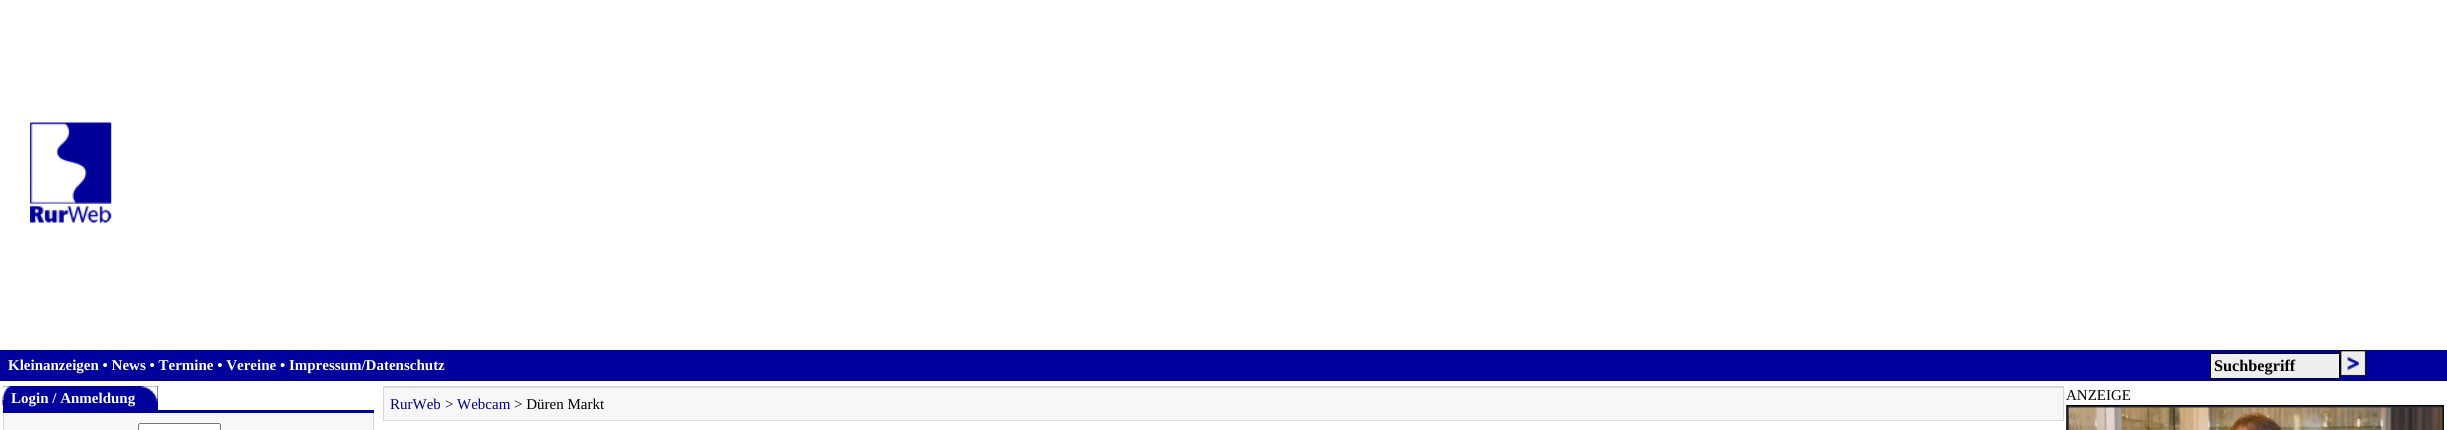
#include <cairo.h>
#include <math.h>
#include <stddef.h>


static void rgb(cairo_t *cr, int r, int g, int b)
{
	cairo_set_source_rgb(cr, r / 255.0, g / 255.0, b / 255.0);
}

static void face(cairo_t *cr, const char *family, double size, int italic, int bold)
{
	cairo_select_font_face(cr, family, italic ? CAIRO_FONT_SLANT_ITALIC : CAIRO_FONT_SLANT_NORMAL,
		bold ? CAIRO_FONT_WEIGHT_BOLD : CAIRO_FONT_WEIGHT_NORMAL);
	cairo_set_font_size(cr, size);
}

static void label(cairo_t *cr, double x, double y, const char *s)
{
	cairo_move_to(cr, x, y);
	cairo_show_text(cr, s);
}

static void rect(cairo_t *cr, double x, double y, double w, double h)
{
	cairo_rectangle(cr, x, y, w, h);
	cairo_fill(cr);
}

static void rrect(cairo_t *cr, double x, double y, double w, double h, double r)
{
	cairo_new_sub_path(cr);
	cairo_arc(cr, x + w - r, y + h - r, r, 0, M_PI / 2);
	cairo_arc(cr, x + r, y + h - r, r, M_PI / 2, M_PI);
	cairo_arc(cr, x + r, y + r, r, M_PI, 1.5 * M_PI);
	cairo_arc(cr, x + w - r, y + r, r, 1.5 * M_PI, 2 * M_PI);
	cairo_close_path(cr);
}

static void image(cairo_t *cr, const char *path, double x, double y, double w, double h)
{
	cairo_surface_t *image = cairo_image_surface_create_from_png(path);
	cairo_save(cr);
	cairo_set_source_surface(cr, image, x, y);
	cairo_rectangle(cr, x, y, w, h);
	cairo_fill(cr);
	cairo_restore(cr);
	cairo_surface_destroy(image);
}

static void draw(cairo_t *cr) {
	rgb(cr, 255, 255, 255);
	cairo_paint(cr);
	image(cr, "image0.png", 30, 122, 82, 101);
	rgb(cr, 0, 0, 156);
	rect(cr, 0, 350, 2447, 31);
	face(cr, "Liberation Serif", 15, 0, 1);
	rgb(cr, 255, 255, 255);
	label(cr, 8, 370, "Kleinanzeigen • News • Termine • Vereine • Impressum/Datenschutz");
	rgb(cr, 238, 238, 238);
	cairo_rectangle(cr, 2210.5, 353.5, 129, 25);
	cairo_fill_preserve(cr);
	rgb(cr, 0, 0, 0);
	cairo_set_line_width(cr, 1);
	cairo_stroke(cr);
	face(cr, "Liberation Serif", 16.25, 0, 1);
	label(cr, 2214, 371, "Suchbegriff");
	image(cr, "image1.png", 2340, 350, 27, 27);
	rgb(cr, 0, 0, 156);
	rect(cr, 3, 410, 371, 3);
	rect(cr, 3, 386, 155, 24);
	image(cr, "image2.png", 2, 386, 9, 19);
	face(cr, "Liberation Serif", 15, 0, 1);
	rgb(cr, 255, 255, 255);
	label(cr, 11, 403, "Login / Anmeldung");
	image(cr, "image3.png", 141, 386, 17, 16);
	rgb(cr, 247, 247, 247);
	rect(cr, 4, 413, 369, 17);
	rgb(cr, 215, 215, 215);
	rect(cr, 373, 413, 1, 17);
	rect(cr, 3, 413, 1, 17);
	rgb(cr, 255, 255, 255);
	rrect(cr, 138.5, 423.5, 82, 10, 2);
	cairo_fill_preserve(cr);
	rgb(cr, 118, 118, 118);
	cairo_stroke(cr);
	rgb(cr, 215, 215, 215);
	rect(cr, 383, 386, 1681, 35);
	rgb(cr, 247, 247, 247);
	rect(cr, 384, 388, 1679, 32);
	face(cr, "Liberation Serif", 15, 0, 0);
	rgb(cr, 0, 0, 139);
	label(cr, 390, 409, "RurWeb");
	rgb(cr, 0, 0, 0);
	label(cr, 445, 409, ">");
	rgb(cr, 0, 0, 139);
	label(cr, 457, 409, "Webcam");
	rgb(cr, 0, 0, 0);
	label(cr, 514, 409, "> Düren Markt");
	label(cr, 2066, 400, "ANZEIGE");
	image(cr, "image4.png", 2066, 405, 378, 25);
}

int main(void) {
	cairo_surface_t *surface = cairo_image_surface_create(CAIRO_FORMAT_RGB24, 2447, 430);
	cairo_t *cr = cairo_create(surface);
	cairo_font_options_t *options = cairo_font_options_create();
	cairo_font_options_set_hint_metrics(options, CAIRO_HINT_METRICS_OFF);
	cairo_font_options_set_hint_style(options, CAIRO_HINT_STYLE_NONE);
	cairo_set_font_options(cr, options);
	cairo_set_miter_limit(cr, 4);
	draw(cr);
	cairo_surface_write_to_png(surface, "render.png");
	cairo_font_options_destroy(options);
	cairo_destroy(cr);
	cairo_surface_destroy(surface);
	return 0;
}
